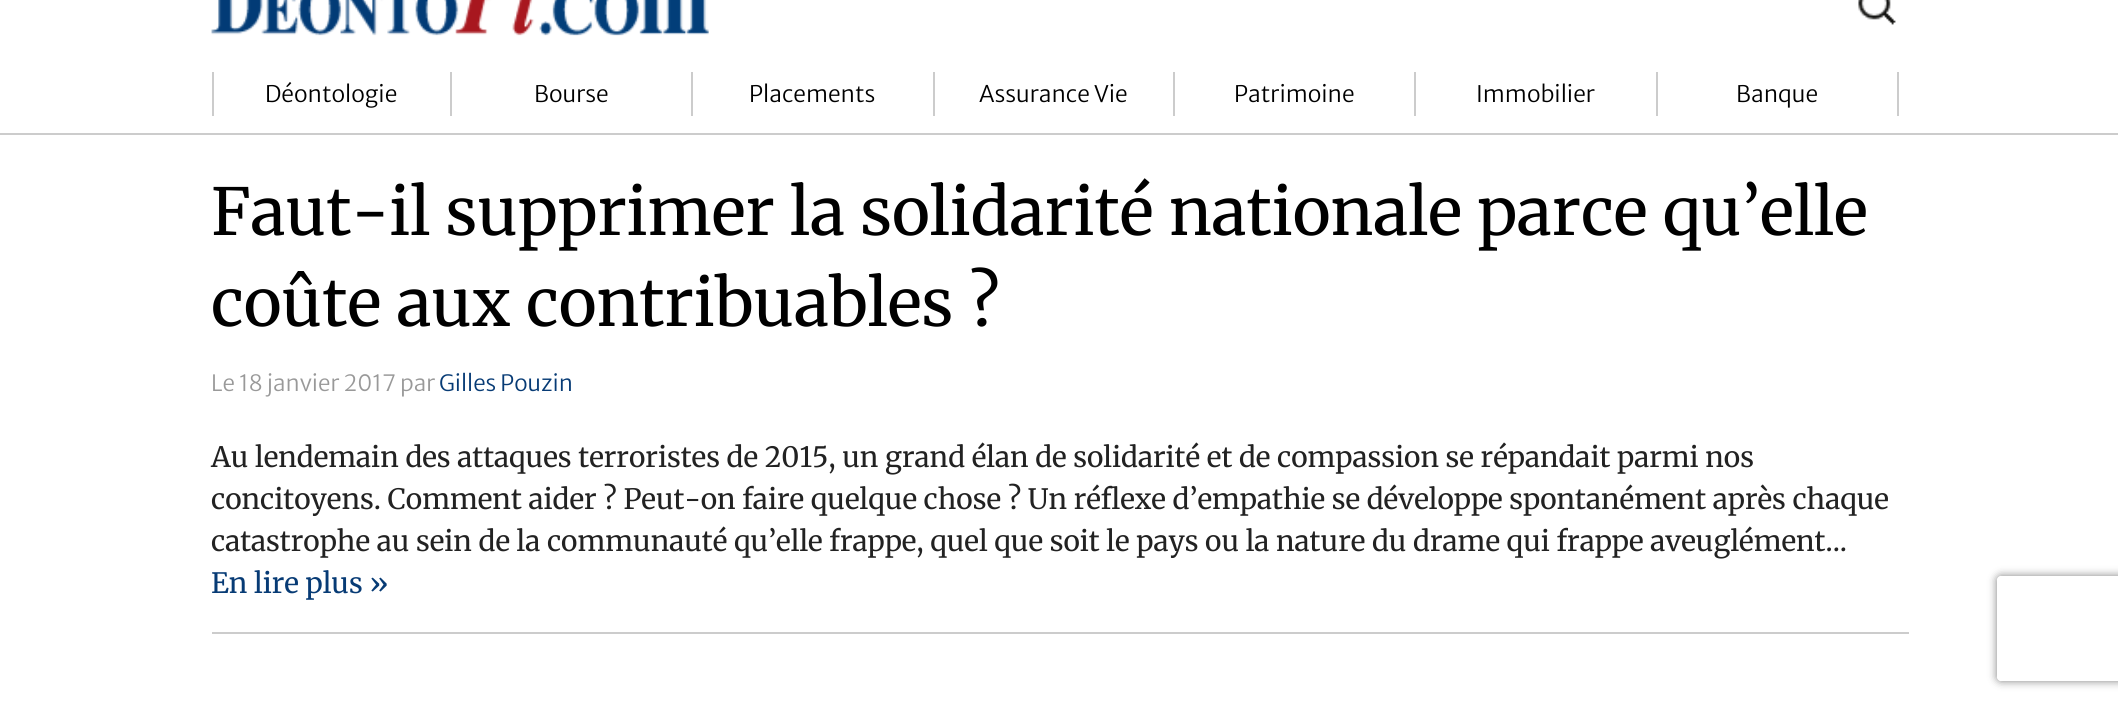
#include <cairo.h>
#include <math.h>
#include <stddef.h>


static void rgb(cairo_t *cr, int r, int g, int b)
{
	cairo_set_source_rgb(cr, r / 255.0, g / 255.0, b / 255.0);
}

static void face(cairo_t *cr, const char *family, double size, int italic, int bold)
{
	cairo_select_font_face(cr, family, italic ? CAIRO_FONT_SLANT_ITALIC : CAIRO_FONT_SLANT_NORMAL,
		bold ? CAIRO_FONT_WEIGHT_BOLD : CAIRO_FONT_WEIGHT_NORMAL);
	cairo_set_font_size(cr, size);
}

static void label(cairo_t *cr, double x, double y, const char *s)
{
	cairo_move_to(cr, x, y);
	cairo_show_text(cr, s);
}

static void rect(cairo_t *cr, double x, double y, double w, double h)
{
	cairo_rectangle(cr, x, y, w, h);
	cairo_fill(cr);
}

static void rrect(cairo_t *cr, double x, double y, double w, double h, double r)
{
	cairo_new_sub_path(cr);
	cairo_arc(cr, x + w - r, y + h - r, r, 0, M_PI / 2);
	cairo_arc(cr, x + r, y + h - r, r, M_PI / 2, M_PI);
	cairo_arc(cr, x + r, y + r, r, M_PI, 1.5 * M_PI);
	cairo_arc(cr, x + w - r, y + r, r, 1.5 * M_PI, 2 * M_PI);
	cairo_close_path(cr);
}

static void soft_shadow(cairo_t *cr, double x, double y, double w, double h, double r, double blur, double alpha)
{
	cairo_push_group_with_content(cr, CAIRO_CONTENT_ALPHA);
	cairo_set_operator(cr, CAIRO_OPERATOR_SOURCE);
	for (int i = 15; i >= -15 && fmin(w, h) + blur * i / 3 > 0; i -= 2) {
		double e = blur * i / 6;
		cairo_set_source_rgba(cr, 0, 0, 0, alpha * erfc((i - 1) / 8.5) / 2);
		rrect(cr, x - e, y - e, w + 2 * e, h + 2 * e, fmax(0, fmin(r + e + blur * .6, fmin(w, h) / 2 + e)));
		cairo_fill(cr);
	}
	cairo_pattern_t *soft = cairo_pop_group(cr);
	cairo_mask(cr, soft);
	cairo_pattern_destroy(soft);
}

static void image(cairo_t *cr, const char *path, double x, double y, double w, double h)
{
	cairo_surface_t *image = cairo_image_surface_create_from_png(path);
	cairo_save(cr);
	cairo_set_source_surface(cr, image, x, y);
	cairo_rectangle(cr, x, y, w, h);
	cairo_fill(cr);
	cairo_restore(cr);
	cairo_surface_destroy(image);
}

static void draw(cairo_t *cr) {
	rgb(cr, 255, 255, 255);
	cairo_paint(cr);
	rgb(cr, 204, 204, 204);
	rect(cr, 0, 133, 2118, 2);
	image(cr, "image0.png", 211, 0, 498, 36);
	image(cr, "image1.png", 1858, 0, 38, 25);
	rect(cr, 450, 72, 2, 44);
	rect(cr, 212, 72, 2, 44);
	face(cr, "Merriweather Sans Light", 22.75, 0, 0);
	rgb(cr, 0, 0, 0);
	label(cr, 265, 102, "Déontologie");
	rgb(cr, 204, 204, 204);
	rect(cr, 691, 72, 2, 44);
	rgb(cr, 0, 0, 0);
	label(cr, 534, 102, "Bourse");
	rgb(cr, 204, 204, 204);
	rect(cr, 933, 72, 2, 44);
	rgb(cr, 0, 0, 0);
	label(cr, 749, 102, "Placements");
	rgb(cr, 204, 204, 204);
	rect(cr, 1173, 72, 2, 44);
	rgb(cr, 0, 0, 0);
	label(cr, 979, 102, "Assurance Vie");
	rgb(cr, 204, 204, 204);
	rect(cr, 1414, 72, 2, 44);
	rgb(cr, 0, 0, 0);
	label(cr, 1234, 102, "Patrimoine");
	rgb(cr, 204, 204, 204);
	rect(cr, 1656, 72, 2, 44);
	rgb(cr, 0, 0, 0);
	label(cr, 1476, 102, "Immobilier");
	rgb(cr, 204, 204, 204);
	rect(cr, 1897, 72, 2, 44);
	rgb(cr, 0, 0, 0);
	label(cr, 1736, 102, "Banque");
	rgb(cr, 204, 204, 204);
	rect(cr, 212, 632, 1697, 2);
	face(cr, "Merriweather", 64.75, 0, 0);
	rgb(cr, 0, 0, 0);
	label(cr, 211, 235, "Faut-il supprimer la solidarité nationale parce qu’elle");
	label(cr, 211, 326, "coûte aux contribuables ?");
	face(cr, "Merriweather Sans Light", 22.4, 0, 0);
	rgb(cr, 153, 153, 153);
	label(cr, 211, 391, "Le 18 janvier 2017 par");
	rgb(cr, 7, 59, 117);
	label(cr, 439, 391, "Gilles Pouzin");
	face(cr, "Merriweather", 28, 0, 0);
	rgb(cr, 34, 34, 34);
	label(cr, 211, 467, "Au lendemain des attaques terroristes de 2015, un grand élan de solidarité et de compassion se répandait parmi nos");
	label(cr, 211, 509, "concitoyens. Comment aider ? Peut-on faire quelque chose ? Un réflexe d’empathie se développe spontanément après chaque");
	label(cr, 211, 551, "catastrophe au sein de la communauté qu’elle frappe, quel que soit le pays ou la nature du drame qui frappe aveuglément...");
	rgb(cr, 7, 59, 117);
	label(cr, 211, 593, "En lire plus »");
	cairo_save(cr);
	cairo_set_fill_rule(cr, CAIRO_FILL_RULE_EVEN_ODD);
	cairo_new_path(cr);
	cairo_move_to(cr, 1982, 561);
	cairo_line_to(cr, 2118, 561);
	cairo_line_to(cr, 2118, 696);
	cairo_line_to(cr, 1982, 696);
	cairo_close_path(cr);
	cairo_move_to(cr, 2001, 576);
	cairo_line_to(cr, 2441, 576);
	cairo_curve_to(cr, 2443, 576, 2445, 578, 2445, 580);
	cairo_line_to(cr, 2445, 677);
	cairo_curve_to(cr, 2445, 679, 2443, 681, 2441, 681);
	cairo_line_to(cr, 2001, 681);
	cairo_curve_to(cr, 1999, 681, 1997, 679, 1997, 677);
	cairo_line_to(cr, 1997, 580);
	cairo_curve_to(cr, 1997, 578, 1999, 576, 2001, 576);
	cairo_close_path(cr);
	cairo_clip(cr);
	rgb(cr, 128, 128, 128);
	soft_shadow(cr, 1997, 576, 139, 105, 4, 4.5, 1);
	cairo_restore(cr);
}

int main(void) {
	cairo_surface_t *surface = cairo_image_surface_create(CAIRO_FORMAT_RGB24, 2118, 705);
	cairo_t *cr = cairo_create(surface);
	cairo_font_options_t *options = cairo_font_options_create();
	cairo_font_options_set_hint_metrics(options, CAIRO_HINT_METRICS_OFF);
	cairo_font_options_set_hint_style(options, CAIRO_HINT_STYLE_NONE);
	cairo_set_font_options(cr, options);
	cairo_set_miter_limit(cr, 4);
	draw(cr);
	cairo_surface_write_to_png(surface, "render.png");
	cairo_font_options_destroy(options);
	cairo_destroy(cr);
	cairo_surface_destroy(surface);
	return 0;
}
